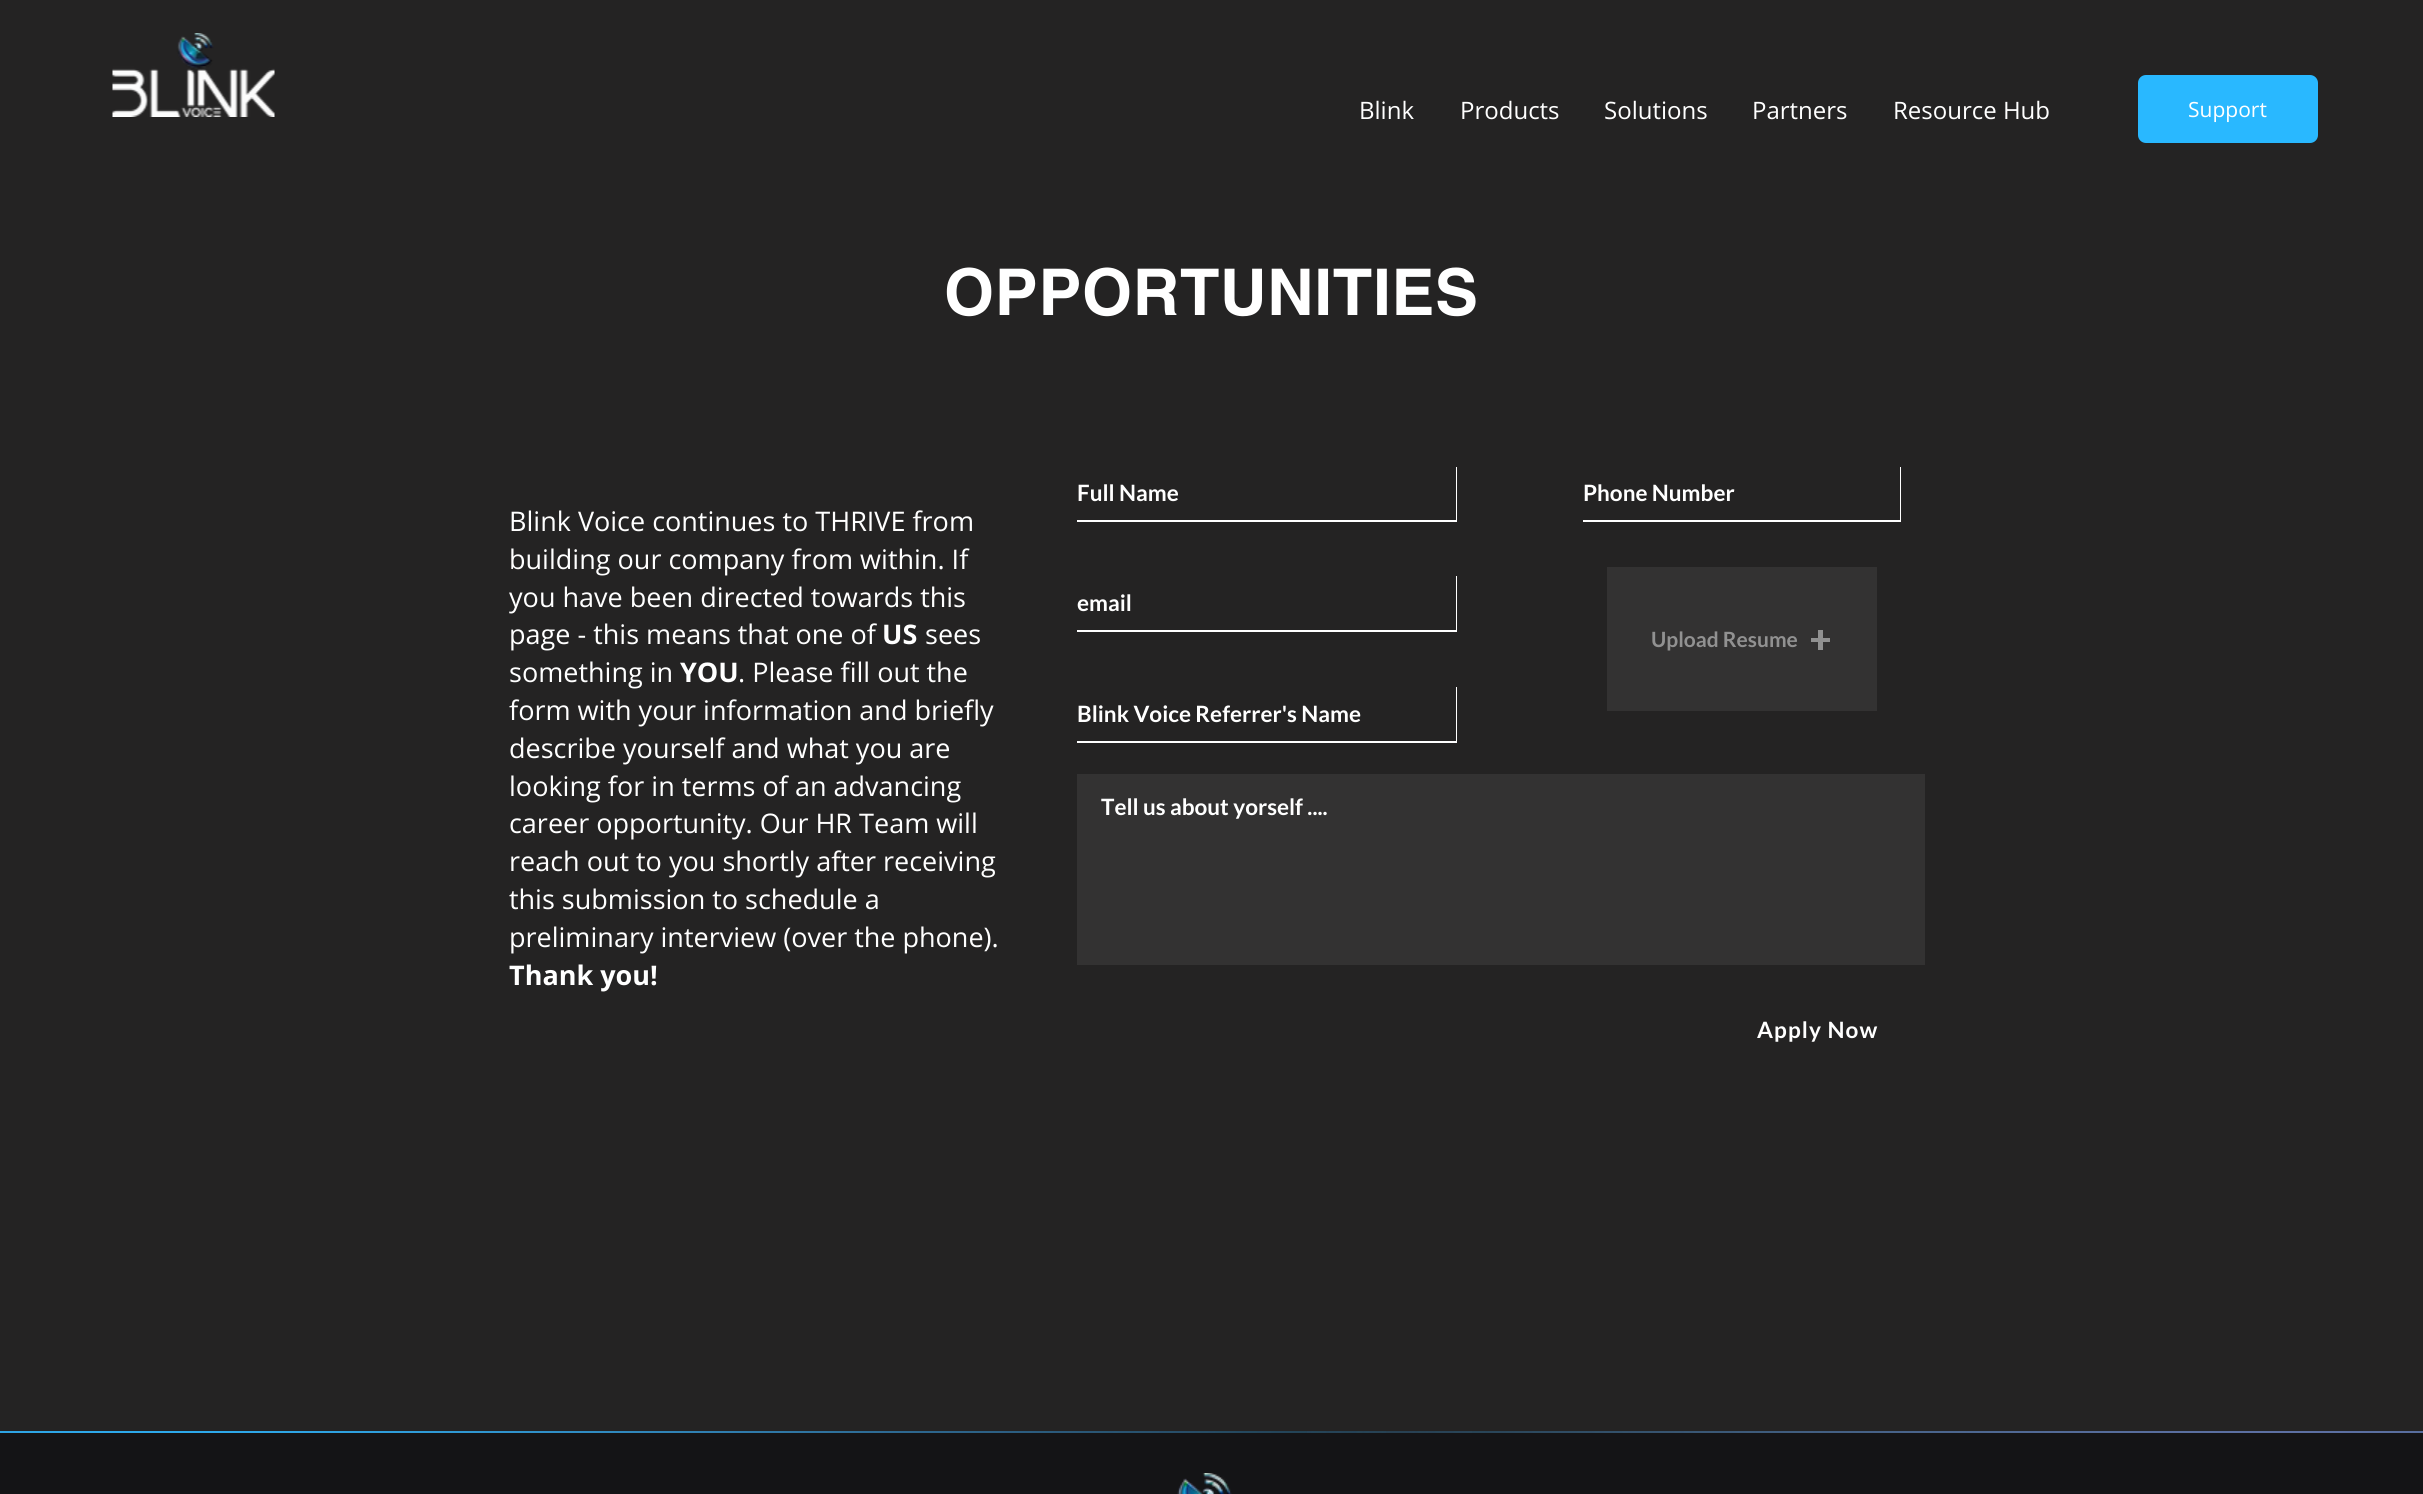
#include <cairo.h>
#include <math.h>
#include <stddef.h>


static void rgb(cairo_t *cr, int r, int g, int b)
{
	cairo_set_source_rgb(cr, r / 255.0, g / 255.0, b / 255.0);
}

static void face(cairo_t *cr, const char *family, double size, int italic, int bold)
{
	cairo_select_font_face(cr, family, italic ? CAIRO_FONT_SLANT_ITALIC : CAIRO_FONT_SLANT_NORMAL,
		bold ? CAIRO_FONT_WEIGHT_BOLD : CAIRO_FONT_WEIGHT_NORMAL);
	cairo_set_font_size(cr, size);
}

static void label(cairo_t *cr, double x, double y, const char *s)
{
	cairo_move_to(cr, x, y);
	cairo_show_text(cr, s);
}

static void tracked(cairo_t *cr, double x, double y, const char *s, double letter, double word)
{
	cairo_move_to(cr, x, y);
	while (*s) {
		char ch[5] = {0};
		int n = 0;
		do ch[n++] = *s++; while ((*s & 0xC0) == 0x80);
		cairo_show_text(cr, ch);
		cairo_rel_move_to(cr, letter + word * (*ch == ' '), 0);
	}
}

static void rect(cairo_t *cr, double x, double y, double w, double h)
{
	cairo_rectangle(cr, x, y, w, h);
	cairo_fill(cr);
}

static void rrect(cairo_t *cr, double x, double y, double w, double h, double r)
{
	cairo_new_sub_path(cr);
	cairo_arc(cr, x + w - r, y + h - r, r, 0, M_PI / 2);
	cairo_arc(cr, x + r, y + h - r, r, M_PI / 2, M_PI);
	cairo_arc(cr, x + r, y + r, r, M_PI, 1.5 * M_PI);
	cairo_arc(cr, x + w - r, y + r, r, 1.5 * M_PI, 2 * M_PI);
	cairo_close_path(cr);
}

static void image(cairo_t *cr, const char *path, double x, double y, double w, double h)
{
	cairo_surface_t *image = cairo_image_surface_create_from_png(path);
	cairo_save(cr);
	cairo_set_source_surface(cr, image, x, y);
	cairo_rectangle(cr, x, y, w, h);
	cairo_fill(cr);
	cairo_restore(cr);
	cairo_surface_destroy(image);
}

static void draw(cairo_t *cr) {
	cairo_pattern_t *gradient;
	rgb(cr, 20, 20, 22);
	cairo_paint(cr);
	rgb(cr, 36, 35, 35);
	rect(cr, 0, 0, 2423, 1431);
	image(cr, "image0.png", 112, 33, 163, 84);
	face(cr, "Open Sans", 24, 0, 0);
	rgb(cr, 255, 255, 255);
	label(cr, 1359, 119, "Blink");
	label(cr, 1460, 119, "Products");
	label(cr, 1604, 119, "Solutions");
	label(cr, 1752, 119, "Partners");
	label(cr, 1893, 119, "Resource Hub");
	rgb(cr, 41, 184, 255);
	rrect(cr, 2138, 75, 180, 68, 8);
	cairo_fill(cr);
	face(cr, "Open Sans", 21, 0, 0);
	rgb(cr, 255, 255, 255);
	label(cr, 2188, 117, "Support");
	face(cr, "helvetica", 64.5, 0, 1);
	tracked(cr, 944, 315, "OPPORTUNITIES", 0.6, 0);
	face(cr, "Open Sans", 27, 0, 0);
	label(cr, 509, 531, "Blink Voice continues to THRIVE from");
	label(cr, 509, 569, "building our company from within. If");
	label(cr, 509, 607, "you have been directed towards this");
	label(cr, 509, 644, "page - this means that one of");
	face(cr, "Open Sans", 27, 0, 1);
	label(cr, 882, 644, "US");
	face(cr, "Open Sans", 27, 0, 0);
	label(cr, 925, 644, "sees");
	label(cr, 509, 682, "something in");
	face(cr, "Open Sans", 27, 0, 1);
	label(cr, 680, 682, "YOU");
	face(cr, "Open Sans", 27, 0, 0);
	label(cr, 738, 682, ". Please fill out the");
	label(cr, 509, 720, "form with your information and briefly");
	label(cr, 509, 758, "describe yourself and what you are");
	label(cr, 509, 796, "looking for in terms of an advancing");
	label(cr, 509, 833, "career opportunity. Our HR Team will");
	label(cr, 509, 871, "reach out to you shortly after receiving");
	label(cr, 509, 909, "this submission to schedule a");
	label(cr, 509, 947, "preliminary interview (over the phone).");
	face(cr, "Open Sans", 27, 0, 1);
	label(cr, 509, 985, "Thank you!");
	cairo_new_path(cr);
	cairo_move_to(cr, 1077, 520);
	cairo_line_to(cr, 1077, 522);
	cairo_line_to(cr, 1457, 522);
	cairo_line_to(cr, 1457, 467);
	cairo_line_to(cr, 1456, 467);
	cairo_line_to(cr, 1456, 520);
	cairo_close_path(cr);
	cairo_fill(cr);
	face(cr, "Lato", 22.5, 0, 1);
	label(cr, 1077, 501, "Full Name");
	cairo_new_path(cr);
	cairo_move_to(cr, 1583, 520);
	cairo_line_to(cr, 1583, 522);
	cairo_line_to(cr, 1901, 522);
	cairo_line_to(cr, 1901, 467);
	cairo_line_to(cr, 1900, 467);
	cairo_line_to(cr, 1900, 520);
	cairo_close_path(cr);
	cairo_fill(cr);
	label(cr, 1583, 501, "Phone Number");
	cairo_new_path(cr);
	cairo_move_to(cr, 1077, 630);
	cairo_line_to(cr, 1077, 632);
	cairo_line_to(cr, 1457, 632);
	cairo_line_to(cr, 1457, 576);
	cairo_line_to(cr, 1456, 576);
	cairo_line_to(cr, 1456, 630);
	cairo_close_path(cr);
	cairo_fill(cr);
	label(cr, 1077, 611, "email");
	rgb(cr, 51, 50, 50);
	rect(cr, 1607, 567, 270, 144);
	face(cr, "Lato", 21, 0, 1);
	rgb(cr, 145, 145, 145);
	label(cr, 1651, 647, "Upload Resume");
	rect(cr, 1818, 630, 5, 20);
	rect(cr, 1811, 638, 19, 4);
	rgb(cr, 255, 255, 255);
	cairo_new_path(cr);
	cairo_move_to(cr, 1077, 741);
	cairo_line_to(cr, 1077, 743);
	cairo_line_to(cr, 1457, 743);
	cairo_line_to(cr, 1457, 687);
	cairo_line_to(cr, 1456, 687);
	cairo_line_to(cr, 1456, 741);
	cairo_close_path(cr);
	cairo_fill(cr);
	face(cr, "Lato", 22.5, 0, 1);
	label(cr, 1077, 722, "Blink Voice Referrer's Name");
	rgb(cr, 51, 50, 50);
	rect(cr, 1077, 774, 848, 191);
	rgb(cr, 255, 255, 255);
	label(cr, 1101, 815, "Tell us about yorself ....");
	tracked(cr, 1757, 1038, "Apply Now", 1.1, 0);
	gradient = cairo_pattern_create_radial(2271, 297, 0, 2271, 297, 2539);
	cairo_pattern_add_color_stop_rgba(gradient, 0, 0.176, 0.714, 0.831, 1);
	cairo_pattern_add_color_stop_rgba(gradient, 0.7, 0.078, 0.078, 0.09, 1);
	cairo_set_source(cr, gradient);
	cairo_pattern_destroy(gradient);
	rect(cr, 923, 1431, 1500, 2);
	gradient = cairo_pattern_create_radial(149, 312, 0, 149, 312, 2536);
	cairo_pattern_add_color_stop_rgba(gradient, 0, 0.533, 0.612, 0.906, 1);
	cairo_pattern_add_color_stop_rgba(gradient, 0.7, 0.533, 0.612, 0.906, 0);
	cairo_set_source(cr, gradient);
	cairo_pattern_destroy(gradient);
	rect(cr, 0, 1431, 1472, 2);
	gradient = cairo_pattern_create_radial(158, 1279, 0, 158, 1279, 2532);
	cairo_pattern_add_color_stop_rgba(gradient, 0, 0.169, 0.722, 1, 0.99);
	cairo_pattern_add_color_stop_rgba(gradient, 0.5, 0.169, 0.722, 1, 0);
	cairo_set_source(cr, gradient);
	cairo_pattern_destroy(gradient);
	rect(cr, 0, 1431, 1386, 2);
	gradient = cairo_pattern_create_radial(2287, 1299, 0, 2287, 1299, 2560);
	cairo_pattern_add_color_stop_rgba(gradient, 0, 0.4, 0.459, 0.678, 1);
	cairo_pattern_add_color_stop_rgba(gradient, 0.4, 0.4, 0.459, 0.678, 0);
	cairo_set_source(cr, gradient);
	cairo_pattern_destroy(gradient);
	rect(cr, 1307, 1431, 1116, 2);
	image(cr, "image1.png", 1177, 1473, 55, 21);
}

int main(void) {
	cairo_surface_t *surface = cairo_image_surface_create(CAIRO_FORMAT_RGB24, 2423, 1494);
	cairo_t *cr = cairo_create(surface);
	cairo_font_options_t *options = cairo_font_options_create();
	cairo_font_options_set_hint_metrics(options, CAIRO_HINT_METRICS_OFF);
	cairo_font_options_set_hint_style(options, CAIRO_HINT_STYLE_NONE);
	cairo_set_font_options(cr, options);
	cairo_set_miter_limit(cr, 4);
	draw(cr);
	cairo_surface_write_to_png(surface, "render.png");
	cairo_font_options_destroy(options);
	cairo_destroy(cr);
	cairo_surface_destroy(surface);
	return 0;
}
